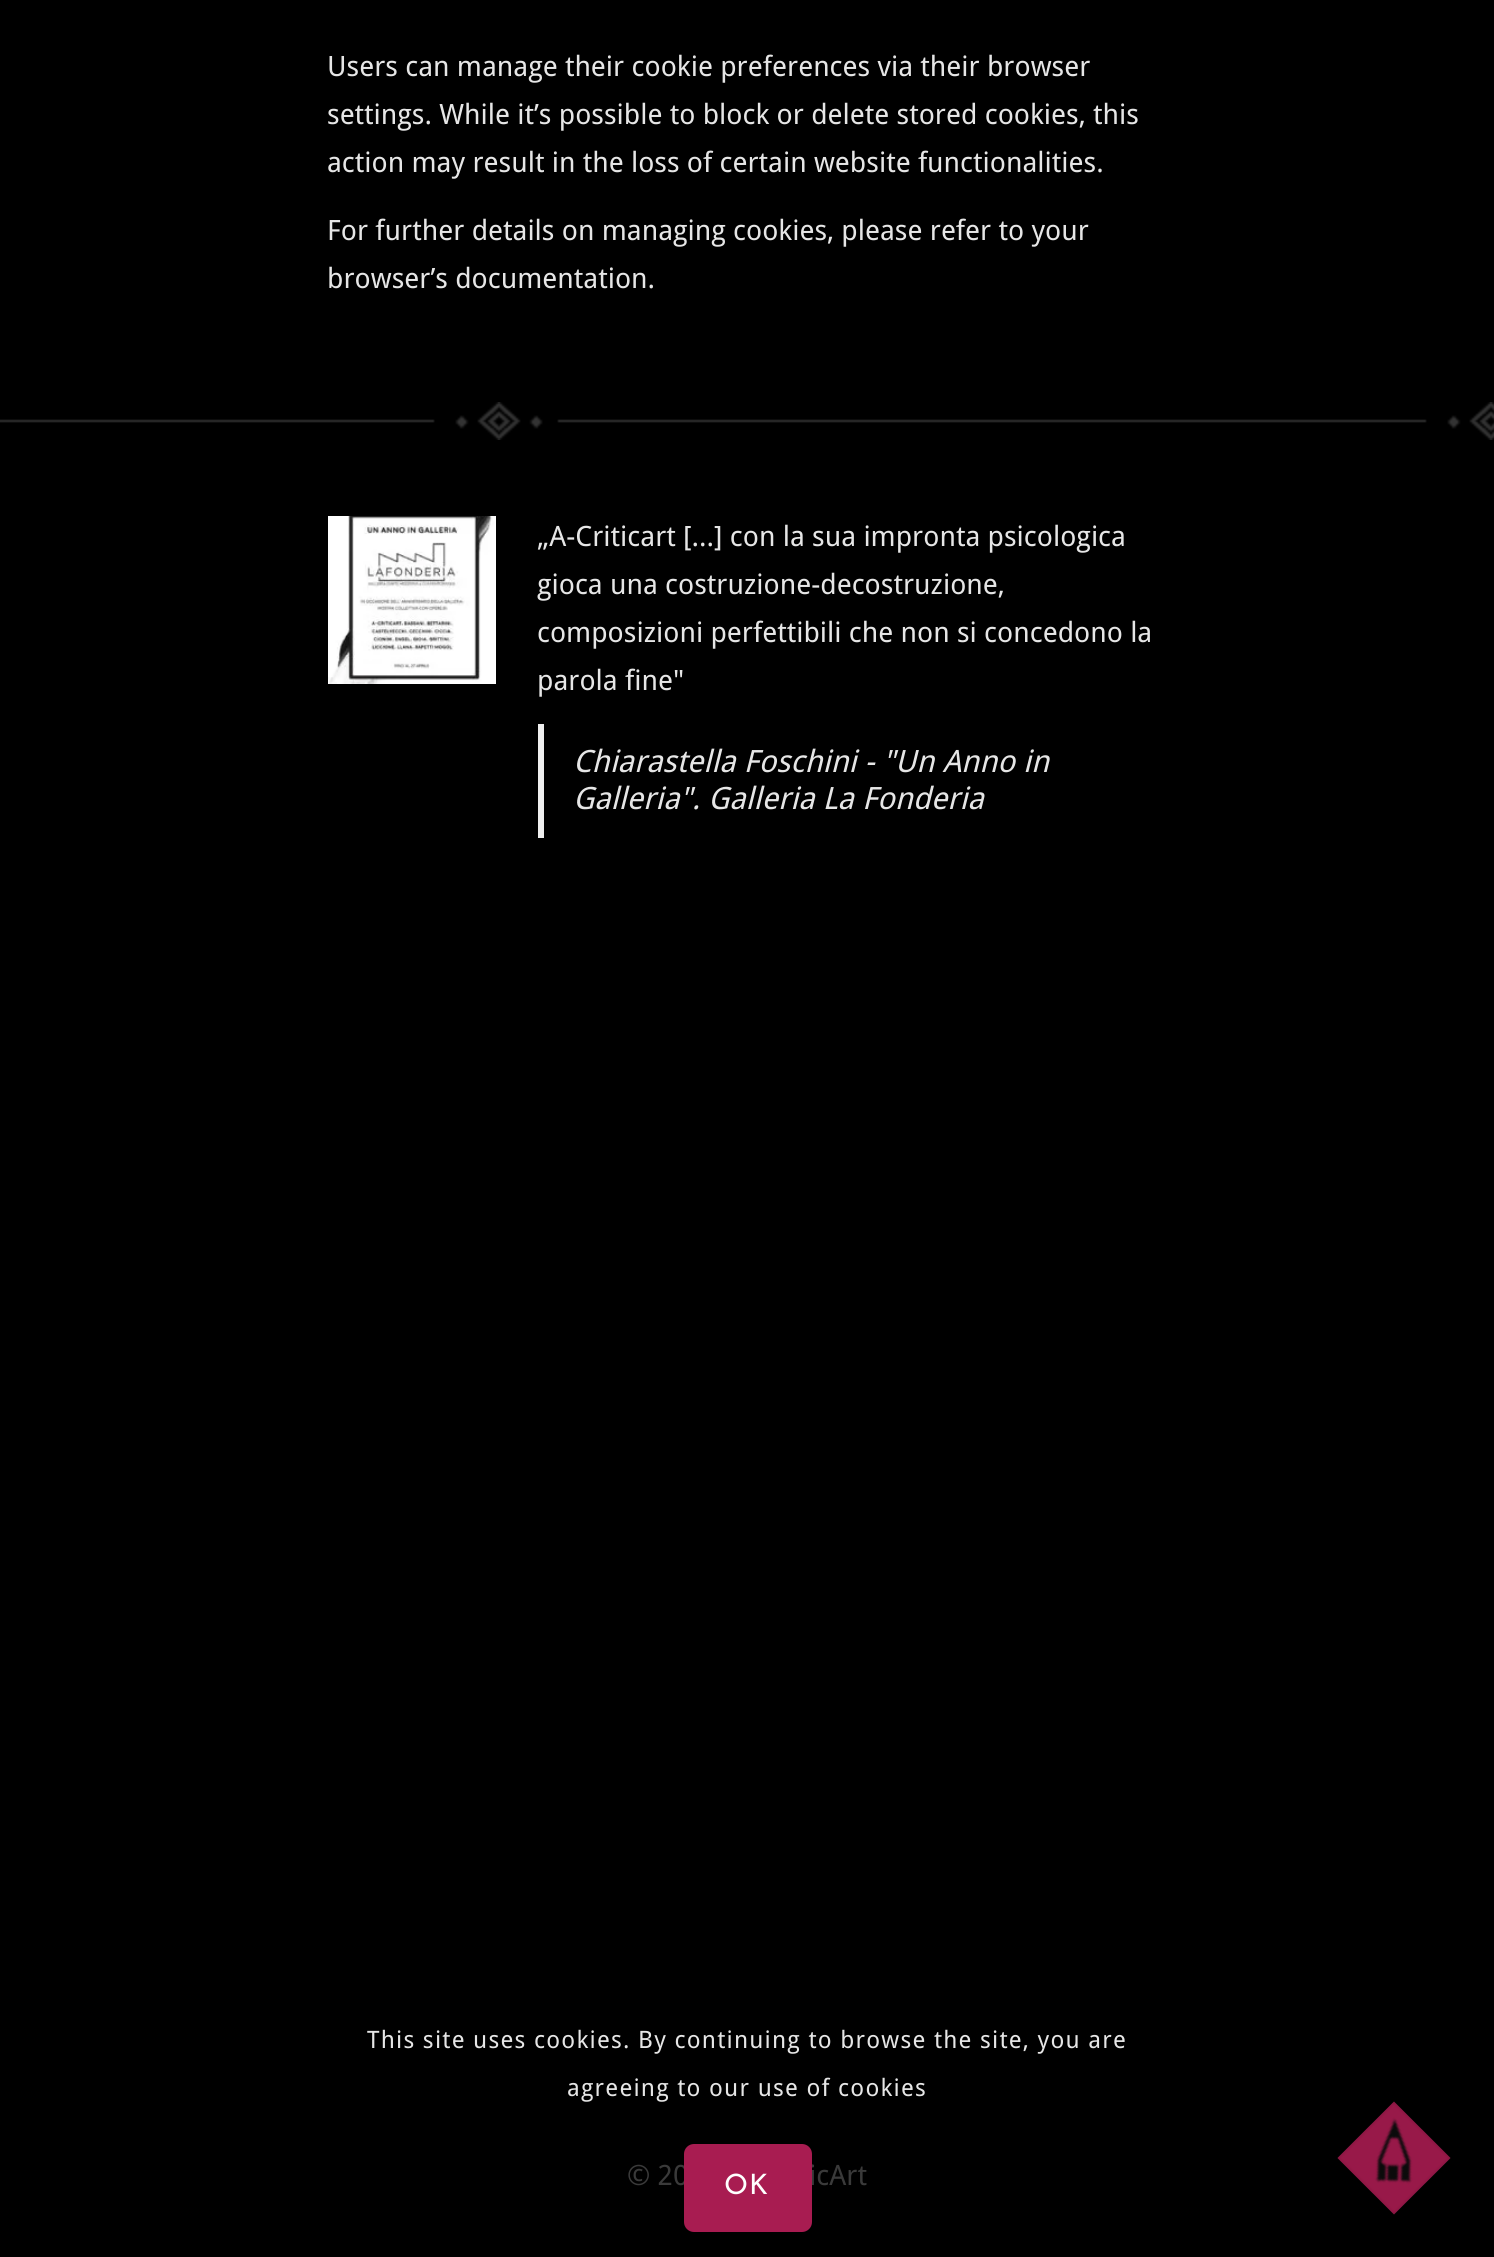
#include <cairo.h>
#include <math.h>
#include <stddef.h>


static void rgb(cairo_t *cr, int r, int g, int b)
{
	cairo_set_source_rgb(cr, r / 255.0, g / 255.0, b / 255.0);
}

static void face(cairo_t *cr, const char *family, double size, int italic, int bold)
{
	cairo_select_font_face(cr, family, italic ? CAIRO_FONT_SLANT_ITALIC : CAIRO_FONT_SLANT_NORMAL,
		bold ? CAIRO_FONT_WEIGHT_BOLD : CAIRO_FONT_WEIGHT_NORMAL);
	cairo_set_font_size(cr, size);
}

static void label(cairo_t *cr, double x, double y, const char *s)
{
	cairo_move_to(cr, x, y);
	cairo_show_text(cr, s);
}

static void tracked(cairo_t *cr, double x, double y, const char *s, double letter, double word)
{
	cairo_move_to(cr, x, y);
	while (*s) {
		char ch[5] = {0};
		int n = 0;
		do ch[n++] = *s++; while ((*s & 0xC0) == 0x80);
		cairo_show_text(cr, ch);
		cairo_rel_move_to(cr, letter + word * (*ch == ' '), 0);
	}
}

static void rect(cairo_t *cr, double x, double y, double w, double h)
{
	cairo_rectangle(cr, x, y, w, h);
	cairo_fill(cr);
}

static void rrect(cairo_t *cr, double x, double y, double w, double h, double r)
{
	cairo_new_sub_path(cr);
	cairo_arc(cr, x + w - r, y + h - r, r, 0, M_PI / 2);
	cairo_arc(cr, x + r, y + h - r, r, M_PI / 2, M_PI);
	cairo_arc(cr, x + r, y + r, r, M_PI, 1.5 * M_PI);
	cairo_arc(cr, x + w - r, y + r, r, 1.5 * M_PI, 2 * M_PI);
	cairo_close_path(cr);
}

static void image(cairo_t *cr, const char *path, double x, double y, double w, double h)
{
	cairo_surface_t *image = cairo_image_surface_create_from_png(path);
	cairo_save(cr);
	cairo_set_source_surface(cr, image, x, y);
	cairo_rectangle(cr, x, y, w, h);
	cairo_fill(cr);
	cairo_restore(cr);
	cairo_surface_destroy(image);
}

static void draw(cairo_t *cr) {
	rgb(cr, 0, 0, 0);
	cairo_paint(cr);
	face(cr, "Droid Sans", 28, 0, 0);
	rgb(cr, 230, 230, 230);
	label(cr, 327, 76, "Users can manage their cookie preferences via their browser");
	label(cr, 327, 124, "settings. While it’s possible to block or delete stored cookies, this");
	label(cr, 327, 172, "action may result in the loss of certain website functionalities.");
	label(cr, 327, 240, "For further details on managing cookies, please refer to your");
	label(cr, 327, 288, "browser’s documentation.");
	image(cr, "image0.png", 0, 402, 1494, 38);
	image(cr, "image1.png", 328, 516, 168, 168);
	label(cr, 537, 546, "„A-Criticart [...] con la sua impronta psicologica");
	label(cr, 537, 594, "gioca una costruzione-decostruzione,");
	label(cr, 537, 642, "composizioni perfettibili che non si concedono la");
	label(cr, 537, 690, "parola fine\"");
	rgb(cr, 239, 239, 239);
	rect(cr, 538, 724, 6, 114);
	face(cr, "Droid Sans", 30.75, 1, 0);
	rgb(cr, 230, 230, 230);
	label(cr, 573, 772, "Chiarastella Foschini - \"Un Anno in");
	label(cr, 573, 809, "Galleria\". Galleria La Fonderia");
	face(cr, "Droid Sans", 28, 0, 0);
	rgb(cr, 58, 58, 58);
	label(cr, 627, 2185, "© 20");
	label(cr, 809, 2185, "icArt");
	face(cr, "Droid Sans", 24, 0, 0);
	rgb(cr, 230, 230, 230);
	tracked(cr, 367, 2048, "This site uses cookies. By continuing to browse the site, you are", 1.2, 0);
	tracked(cr, 567, 2096, "agreeing to our use of cookies", 1.2, 0);
	rgb(cr, 168, 28, 81);
	rrect(cr, 684, 2144, 128, 88, 10);
	cairo_fill(cr);
	face(cr, "Josefin Sans", 28, 0, 0);
	rgb(cr, 255, 255, 255);
	tracked(cr, 724, 2194, "OK", 1, 0);
	image(cr, "image2.png", 1337, 2101, 114, 114);
}

int main(void) {
	cairo_surface_t *surface = cairo_image_surface_create(CAIRO_FORMAT_RGB24, 1494, 2257);
	cairo_t *cr = cairo_create(surface);
	cairo_font_options_t *options = cairo_font_options_create();
	cairo_font_options_set_hint_metrics(options, CAIRO_HINT_METRICS_OFF);
	cairo_font_options_set_hint_style(options, CAIRO_HINT_STYLE_NONE);
	cairo_set_font_options(cr, options);
	cairo_set_miter_limit(cr, 4);
	draw(cr);
	cairo_surface_write_to_png(surface, "render.png");
	cairo_font_options_destroy(options);
	cairo_destroy(cr);
	cairo_surface_destroy(surface);
	return 0;
}
